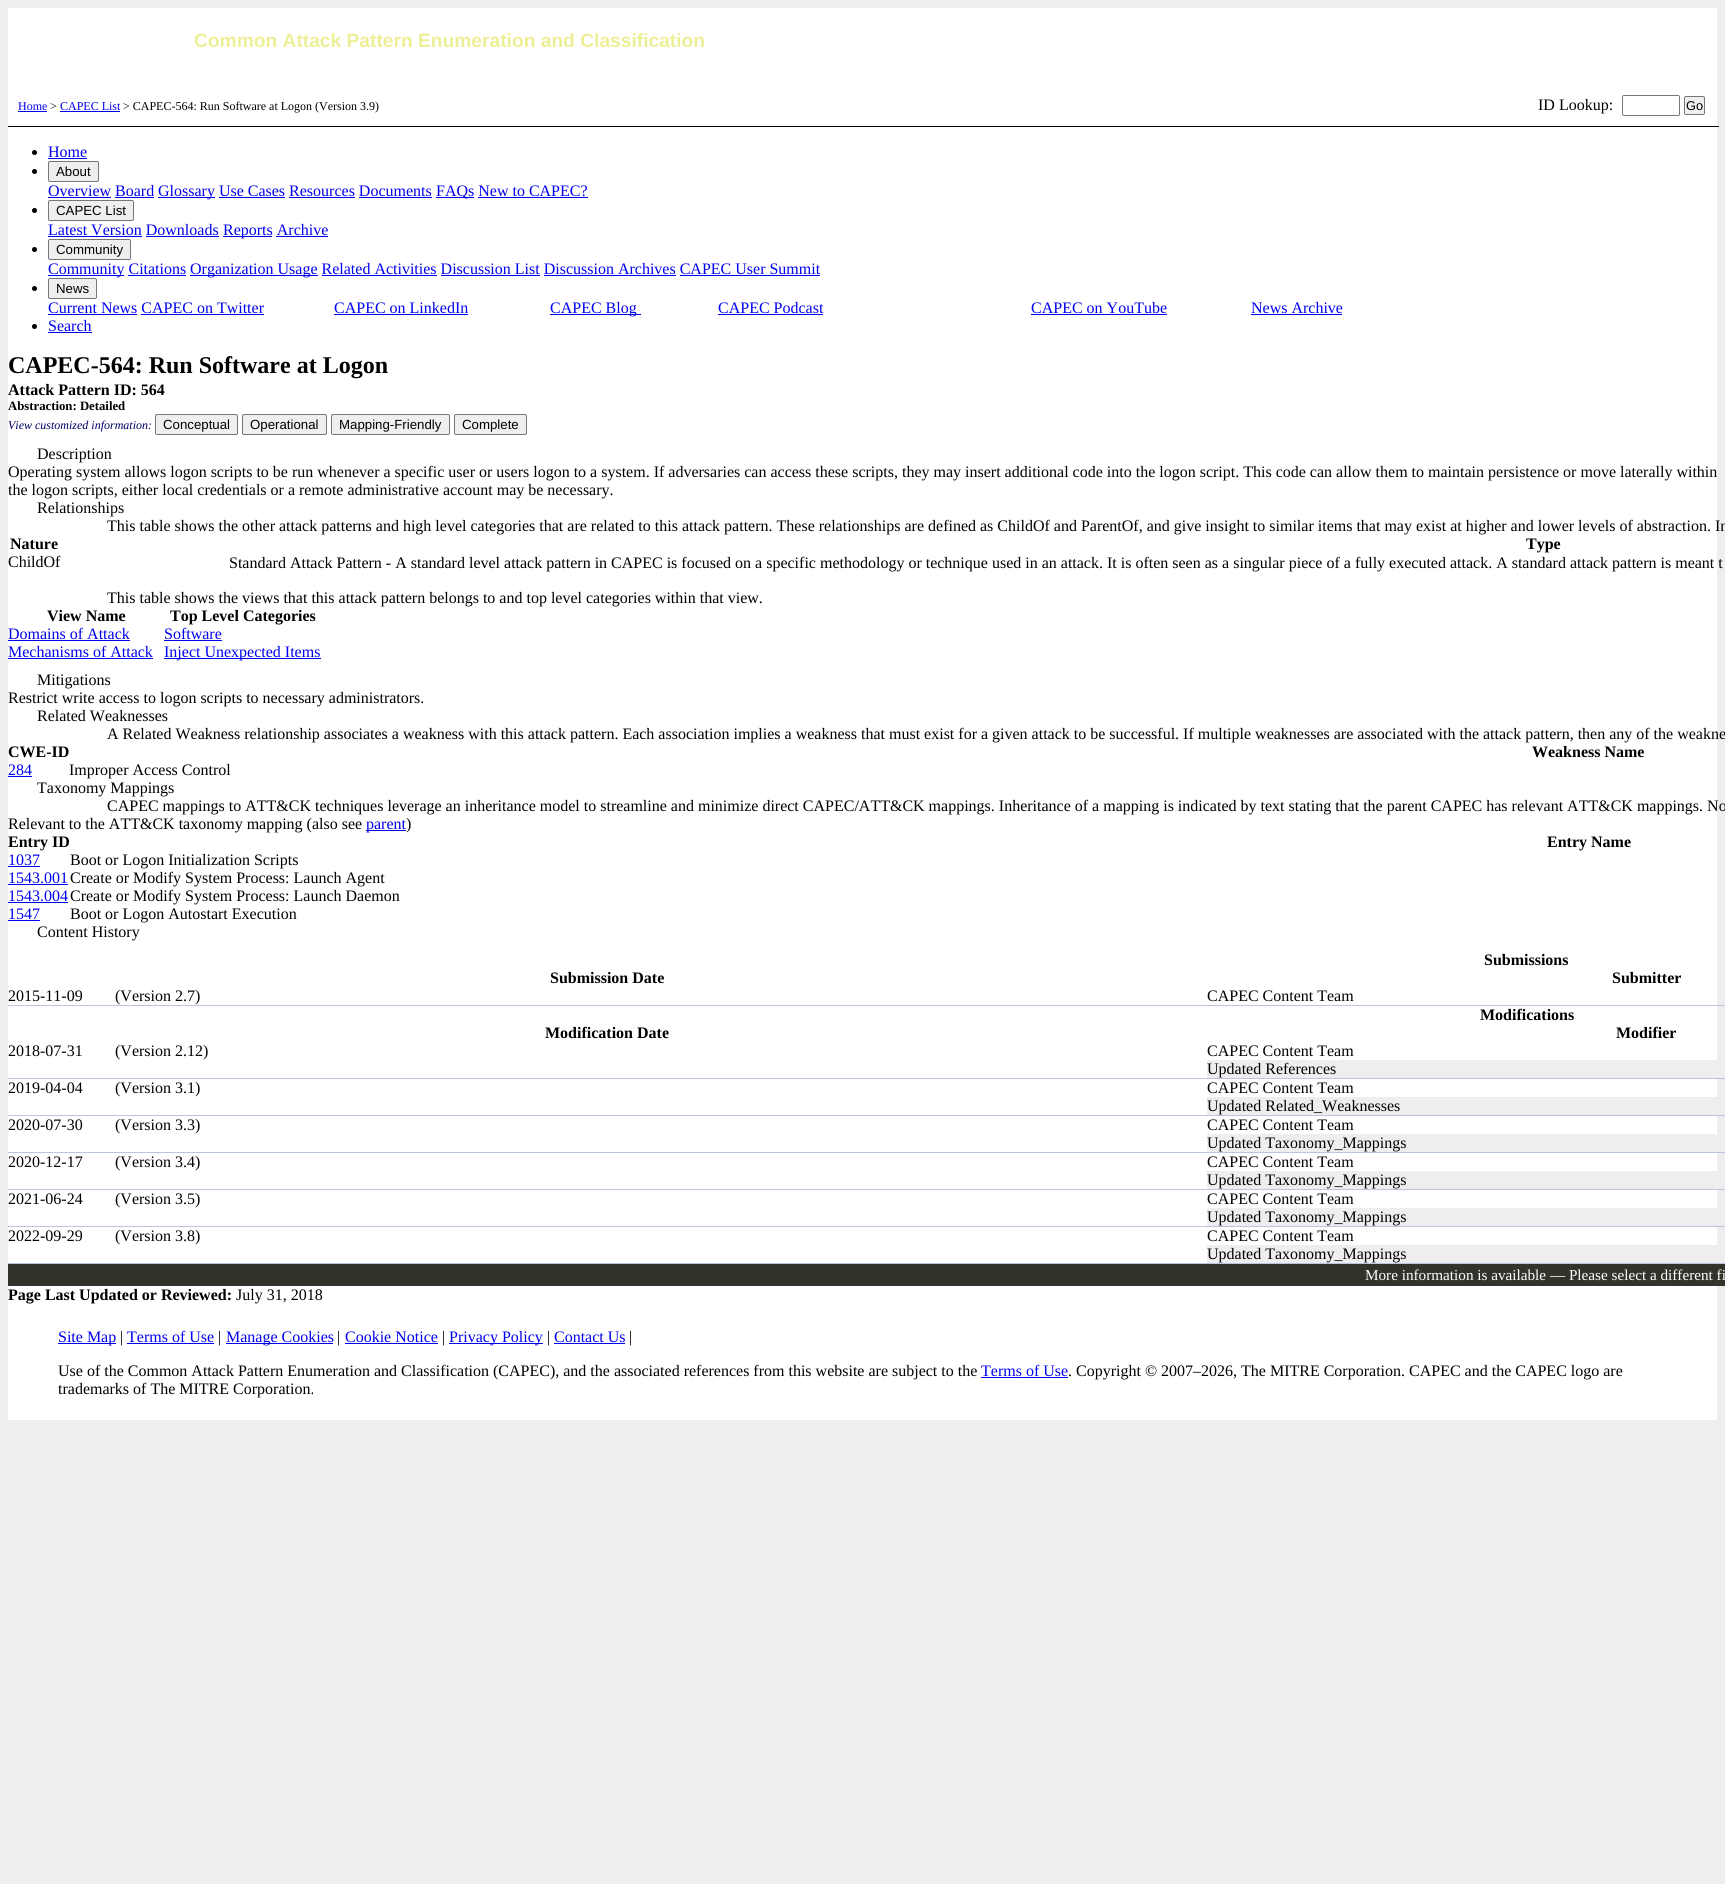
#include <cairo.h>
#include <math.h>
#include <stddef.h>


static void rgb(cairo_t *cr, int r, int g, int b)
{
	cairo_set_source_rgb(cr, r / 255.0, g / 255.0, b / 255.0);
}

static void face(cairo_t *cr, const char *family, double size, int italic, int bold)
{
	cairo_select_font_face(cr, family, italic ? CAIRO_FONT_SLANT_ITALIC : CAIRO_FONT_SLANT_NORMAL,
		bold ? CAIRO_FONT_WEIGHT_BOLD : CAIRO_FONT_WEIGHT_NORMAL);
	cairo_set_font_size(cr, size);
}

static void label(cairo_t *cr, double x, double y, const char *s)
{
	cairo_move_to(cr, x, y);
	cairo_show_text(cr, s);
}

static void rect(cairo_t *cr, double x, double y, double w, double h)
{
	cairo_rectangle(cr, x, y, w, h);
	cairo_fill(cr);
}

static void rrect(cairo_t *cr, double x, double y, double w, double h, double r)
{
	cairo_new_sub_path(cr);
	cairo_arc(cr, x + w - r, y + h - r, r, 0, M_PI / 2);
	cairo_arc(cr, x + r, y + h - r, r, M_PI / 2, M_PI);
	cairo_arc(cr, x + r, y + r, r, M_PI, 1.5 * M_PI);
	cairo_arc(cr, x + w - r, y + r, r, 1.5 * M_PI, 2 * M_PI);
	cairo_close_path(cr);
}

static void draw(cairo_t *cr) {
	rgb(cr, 238, 238, 238);
	cairo_paint(cr);
	rgb(cr, 255, 255, 255);
	rect(cr, 8, 8, 1709, 1412);
	face(cr, "Liberation Sans", 19.2, 0, 1);
	rgb(cr, 237, 239, 151);
	label(cr, 194, 47, "Common Attack Pattern Enumeration and Classification");
	face(cr, "Liberation Serif", 12, 0, 0);
	rgb(cr, 0, 0, 238);
	label(cr, 18, 110, "Home");
	rect(cr, 18, 111, 29, 1);
	rgb(cr, 0, 0, 0);
	label(cr, 50, 110, ">");
	rgb(cr, 0, 0, 238);
	label(cr, 60, 110, "CAPEC List");
	rect(cr, 60, 111, 60, 1);
	rgb(cr, 0, 0, 0);
	label(cr, 123, 110, "> CAPEC-564: Run Software at Logon (Version 3.9)");
	face(cr, "Liberation Serif", 16, 0, 0);
	label(cr, 1538, 110, "ID Lookup:");
	rrect(cr, 1622.5, 95.5, 57, 20, 1.5);
	rgb(cr, 118, 118, 118);
	cairo_set_line_width(cr, 1);
	cairo_stroke(cr);
	rgb(cr, 239, 239, 239);
	rrect(cr, 1684.5, 96.5, 20, 18, 1.5);
	cairo_fill_preserve(cr);
	rgb(cr, 118, 118, 118);
	cairo_stroke(cr);
	face(cr, "Liberation Sans", 12.75, 0, 0);
	rgb(cr, 0, 0, 0);
	label(cr, 1686, 110, "Go");
	rect(cr, 8, 126, 1711, 1);
	cairo_new_path(cr);
	cairo_arc(cr, 34.5, 152.5, 2.5, 0, 2 * M_PI);
	cairo_fill(cr);
	face(cr, "Liberation Serif", 16, 0, 0);
	rgb(cr, 0, 0, 238);
	label(cr, 48, 157, "Home");
	rect(cr, 48, 158, 39, 1);
	rgb(cr, 0, 0, 0);
	cairo_new_path(cr);
	cairo_arc(cr, 34.5, 171.5, 2.5, 0, 2 * M_PI);
	cairo_fill(cr);
	rgb(cr, 239, 239, 239);
	rrect(cr, 48.5, 161.5, 50, 20, 1.5);
	cairo_fill_preserve(cr);
	rgb(cr, 118, 118, 118);
	cairo_stroke(cr);
	face(cr, "Liberation Sans", 13.25, 0, 0);
	rgb(cr, 0, 0, 0);
	label(cr, 56, 176, "About");
	face(cr, "Liberation Serif", 16, 0, 0);
	rgb(cr, 0, 0, 238);
	label(cr, 48, 196, "Overview Board");
	rect(cr, 48, 197, 63, 1);
	rect(cr, 158, 197, 57, 1);
	label(cr, 158, 196, "Glossary Use Cases Resources Documents");
	rect(cr, 436, 197, 38, 1);
	label(cr, 436, 196, "FAQs New to CAPEC?");
	rect(cr, 115, 197, 39, 1);
	rect(cr, 219, 197, 66, 1);
	rect(cr, 289, 197, 66, 1);
	rect(cr, 359, 197, 73, 1);
	rect(cr, 478, 197, 110, 1);
	rgb(cr, 0, 0, 0);
	cairo_new_path(cr);
	cairo_arc(cr, 34.5, 210.5, 2.5, 0, 2 * M_PI);
	cairo_fill(cr);
	rgb(cr, 239, 239, 239);
	rrect(cr, 48.5, 200.5, 85, 20, 1.5);
	cairo_fill_preserve(cr);
	rgb(cr, 118, 118, 118);
	cairo_stroke(cr);
	face(cr, "Liberation Sans", 13.25, 0, 0);
	rgb(cr, 0, 0, 0);
	label(cr, 56, 215, "CAPEC List");
	face(cr, "Liberation Serif", 16, 0, 0);
	rgb(cr, 0, 0, 238);
	label(cr, 48, 235, "Latest Version Downloads");
	rect(cr, 48, 236, 94, 1);
	rect(cr, 223, 236, 49, 1);
	label(cr, 223, 235, "Reports Archive");
	rect(cr, 146, 236, 73, 1);
	rect(cr, 276, 236, 52, 1);
	rgb(cr, 0, 0, 0);
	cairo_new_path(cr);
	cairo_arc(cr, 34.5, 249.5, 2.5, 0, 2 * M_PI);
	cairo_fill(cr);
	rgb(cr, 239, 239, 239);
	rrect(cr, 48.5, 239.5, 82, 20, 1.5);
	cairo_fill_preserve(cr);
	rgb(cr, 118, 118, 118);
	cairo_stroke(cr);
	face(cr, "Liberation Sans", 13.25, 0, 0);
	rgb(cr, 0, 0, 0);
	label(cr, 56, 254, "Community");
	rgb(cr, 0, 0, 238);
	rect(cr, 48, 275, 76, 1);
	face(cr, "Liberation Serif", 16, 0, 0);
	label(cr, 48, 274, "Community Citations");
	rect(cr, 190, 275, 128, 1);
	label(cr, 190, 274, "Organization Usage Related Activities Discussion List Discussion Archives CAPEC User Summit");
	rect(cr, 128, 275, 58, 1);
	rect(cr, 322, 275, 115, 1);
	rect(cr, 441, 275, 99, 1);
	rect(cr, 544, 275, 132, 1);
	rect(cr, 680, 275, 140, 1);
	rgb(cr, 0, 0, 0);
	cairo_new_path(cr);
	cairo_arc(cr, 34.5, 288.5, 2.5, 0, 2 * M_PI);
	cairo_fill(cr);
	rgb(cr, 239, 239, 239);
	rrect(cr, 48.5, 278.5, 48, 20, 1.5);
	cairo_fill_preserve(cr);
	rgb(cr, 118, 118, 118);
	cairo_stroke(cr);
	face(cr, "Liberation Sans", 13.25, 0, 0);
	rgb(cr, 0, 0, 0);
	label(cr, 56, 293, "News");
	face(cr, "Liberation Serif", 16, 0, 0);
	rgb(cr, 0, 0, 238);
	label(cr, 48, 313, "Current News CAPEC on Twitter");
	rect(cr, 48, 314, 89, 1);
	label(cr, 334, 313, "CAPEC on LinkedIn");
	rect(cr, 334, 314, 134, 1);
	rect(cr, 550, 314, 91, 1);
	label(cr, 550, 313, "CAPEC Blog");
	label(cr, 718, 313, "CAPEC Podcast");
	rect(cr, 718, 314, 105, 1);
	label(cr, 1031, 313, "CAPEC on YouTube");
	rect(cr, 1031, 314, 136, 1);
	label(cr, 1251, 313, "News Archive");
	rect(cr, 1251, 314, 91, 1);
	rect(cr, 141, 314, 123, 1);
	rgb(cr, 0, 0, 0);
	cairo_new_path(cr);
	cairo_arc(cr, 34.5, 326.5, 2.5, 0, 2 * M_PI);
	cairo_fill(cr);
	rgb(cr, 0, 0, 238);
	label(cr, 48, 331, "Search");
	rect(cr, 48, 332, 44, 1);
	face(cr, "Liberation Serif", 24, 0, 1);
	rgb(cr, 0, 0, 0);
	label(cr, 8, 373, "CAPEC-564: Run Software at Logon");
	face(cr, "Liberation Serif", 16, 0, 1);
	label(cr, 8, 395, "Attack Pattern ID: 564");
	face(cr, "Liberation Serif", 12.75, 0, 1);
	label(cr, 8, 410, "Abstraction: Detailed");
	face(cr, "Liberation Serif", 12, 1, 0);
	rgb(cr, 0, 0, 102);
	label(cr, 8, 429, "View customized information:");
	rgb(cr, 239, 239, 239);
	rrect(cr, 155.5, 414.5, 82, 20, 1.5);
	cairo_fill_preserve(cr);
	rgb(cr, 118, 118, 118);
	cairo_stroke(cr);
	face(cr, "Liberation Sans", 13.25, 0, 0);
	rgb(cr, 0, 0, 0);
	label(cr, 163, 429, "Conceptual");
	rgb(cr, 239, 239, 239);
	rrect(cr, 242.5, 414.5, 84, 20, 1.5);
	cairo_fill_preserve(cr);
	rgb(cr, 118, 118, 118);
	cairo_stroke(cr);
	rgb(cr, 0, 0, 0);
	label(cr, 250, 429, "Operational");
	rgb(cr, 239, 239, 239);
	rrect(cr, 331.5, 414.5, 118, 20, 1.5);
	cairo_fill_preserve(cr);
	rgb(cr, 118, 118, 118);
	cairo_stroke(cr);
	rgb(cr, 0, 0, 0);
	label(cr, 339, 429, "Mapping-Friendly");
	rgb(cr, 239, 239, 239);
	rrect(cr, 454.5, 414.5, 72, 20, 1.5);
	cairo_fill_preserve(cr);
	rgb(cr, 118, 118, 118);
	cairo_stroke(cr);
	rgb(cr, 0, 0, 0);
	label(cr, 462, 429, "Complete");
	face(cr, "Liberation Serif", 16, 0, 0);
	label(cr, 37, 459, "Description");
	label(cr, 8, 477, "Operating system allows logon scripts to be run whenever a specific user or users logon to a system. If adversaries can access these scripts, they may insert additional code into the logon script. This code can allow them to maintain persistence or move laterally within");
	label(cr, 8, 495, "the logon scripts, either local credentials or a remote administrative account may be necessary.");
	label(cr, 37, 513, "Relationships");
	label(cr, 107, 531, "This table shows the other attack patterns and high level categories that are related to this attack pattern. These relationships are defined as ChildOf and ParentOf, and give insight to similar items that may exist at higher and lower levels of abstraction. In");
	face(cr, "Liberation Serif", 16, 0, 1);
	label(cr, 10, 549, "Nature");
	label(cr, 1526, 549, "Type");
	face(cr, "Liberation Serif", 16, 0, 0);
	label(cr, 8, 567, "ChildOf");
	label(cr, 229, 568, "Standard Attack Pattern - A standard level attack pattern in CAPEC is focused on a specific methodology or technique used in an attack. It is often seen as a singular piece of a fully executed attack. A standard attack pattern is meant t");
	label(cr, 107, 603, "This table shows the views that this attack pattern belongs to and top level categories within that view.");
	face(cr, "Liberation Serif", 16, 0, 1);
	label(cr, 47, 621, "View Name");
	label(cr, 170, 621, "Top Level Categories");
	face(cr, "Liberation Serif", 16, 0, 0);
	rgb(cr, 0, 0, 238);
	label(cr, 8, 639, "Domains of Attack");
	rect(cr, 8, 640, 122, 1);
	label(cr, 164, 639, "Software");
	rect(cr, 164, 640, 58, 1);
	label(cr, 8, 657, "Mechanisms of Attack");
	rect(cr, 8, 658, 145, 1);
	rect(cr, 164, 658, 157, 1);
	label(cr, 164, 657, "Inject Unexpected Items");
	rgb(cr, 0, 0, 0);
	label(cr, 37, 685, "Mitigations");
	label(cr, 8, 703, "Restrict write access to logon scripts to necessary administrators.");
	label(cr, 37, 721, "Related Weaknesses");
	label(cr, 107, 739, "A Related Weakness relationship associates a weakness with this attack pattern. Each association implies a weakness that must exist for a given attack to be successful. If multiple weaknesses are associated with the attack pattern, then any of the weakne");
	face(cr, "Liberation Serif", 16, 0, 1);
	label(cr, 8, 757, "CWE-ID");
	label(cr, 1532, 757, "Weakness Name");
	face(cr, "Liberation Serif", 16, 0, 0);
	rgb(cr, 0, 0, 238);
	label(cr, 8, 775, "284");
	rect(cr, 8, 776, 24, 1);
	rgb(cr, 0, 0, 0);
	label(cr, 69, 775, "Improper Access Control");
	label(cr, 37, 793, "Taxonomy Mappings");
	label(cr, 107, 811, "CAPEC mappings to ATT&CK techniques leverage an inheritance model to streamline and minimize direct CAPEC/ATT&CK mappings. Inheritance of a mapping is indicated by text stating that the parent CAPEC has relevant ATT&CK mappings. No");
	label(cr, 8, 829, "Relevant to the ATT&CK taxonomy mapping (also see");
	rgb(cr, 0, 0, 238);
	rect(cr, 366, 830, 40, 1);
	label(cr, 366, 829, "parent");
	rgb(cr, 0, 0, 0);
	label(cr, 406, 829, ")");
	face(cr, "Liberation Serif", 16, 0, 1);
	label(cr, 8, 847, "Entry ID");
	label(cr, 1547, 847, "Entry Name");
	face(cr, "Liberation Serif", 16, 0, 0);
	rgb(cr, 0, 0, 238);
	label(cr, 8, 865, "1037");
	rect(cr, 8, 866, 32, 1);
	rgb(cr, 0, 0, 0);
	label(cr, 70, 865, "Boot or Logon Initialization Scripts");
	rgb(cr, 0, 0, 238);
	label(cr, 8, 883, "1543.001");
	rect(cr, 8, 884, 60, 1);
	rgb(cr, 0, 0, 0);
	label(cr, 70, 883, "Create or Modify System Process: Launch Agent");
	rgb(cr, 0, 0, 238);
	label(cr, 8, 901, "1543.004");
	rect(cr, 8, 902, 60, 1);
	rgb(cr, 0, 0, 0);
	label(cr, 70, 901, "Create or Modify System Process: Launch Daemon");
	rgb(cr, 0, 0, 238);
	label(cr, 8, 919, "1547");
	rect(cr, 8, 920, 32, 1);
	rgb(cr, 0, 0, 0);
	label(cr, 70, 919, "Boot or Logon Autostart Execution");
	label(cr, 37, 937, "Content History");
	face(cr, "Liberation Serif", 16, 0, 1);
	label(cr, 1484, 965, "Submissions");
	label(cr, 550, 983, "Submission Date");
	label(cr, 1612, 983, "Submitter");
	rgb(cr, 186, 197, 227);
	rect(cr, 8, 1005, 1717, 1);
	face(cr, "Liberation Serif", 16, 0, 0);
	rgb(cr, 0, 0, 0);
	label(cr, 8, 1001, "2015-11-09");
	label(cr, 115, 1001, "(Version 2.7)");
	label(cr, 1207, 1001, "CAPEC Content Team");
	face(cr, "Liberation Serif", 16, 0, 1);
	label(cr, 1480, 1020, "Modifications");
	label(cr, 545, 1038, "Modification Date");
	label(cr, 1616, 1038, "Modifier");
	rgb(cr, 186, 197, 227);
	rect(cr, 8, 1078, 1717, 1);
	face(cr, "Liberation Serif", 16, 0, 0);
	rgb(cr, 0, 0, 0);
	label(cr, 8, 1056, "2018-07-31");
	label(cr, 115, 1056, "(Version 2.12)");
	label(cr, 1207, 1056, "CAPEC Content Team");
	rgb(cr, 238, 238, 238);
	rect(cr, 1207, 1060, 510, 18);
	rgb(cr, 0, 0, 0);
	label(cr, 1207, 1074, "Updated References");
	rgb(cr, 186, 197, 227);
	rect(cr, 8, 1115, 1717, 1);
	rgb(cr, 0, 0, 0);
	label(cr, 8, 1093, "2019-04-04");
	label(cr, 115, 1093, "(Version 3.1)");
	label(cr, 1207, 1093, "CAPEC Content Team");
	rgb(cr, 238, 238, 238);
	rect(cr, 1207, 1097, 510, 18);
	rgb(cr, 0, 0, 0);
	label(cr, 1207, 1111, "Updated Related_Weaknesses");
	rgb(cr, 186, 197, 227);
	rect(cr, 8, 1152, 1717, 1);
	rgb(cr, 0, 0, 0);
	label(cr, 8, 1130, "2020-07-30");
	label(cr, 115, 1130, "(Version 3.3)");
	label(cr, 1207, 1130, "CAPEC Content Team");
	rgb(cr, 238, 238, 238);
	rect(cr, 1207, 1134, 510, 18);
	rgb(cr, 0, 0, 0);
	label(cr, 1207, 1148, "Updated Taxonomy_Mappings");
	rgb(cr, 186, 197, 227);
	rect(cr, 8, 1189, 1717, 1);
	rgb(cr, 0, 0, 0);
	label(cr, 8, 1167, "2020-12-17");
	label(cr, 115, 1167, "(Version 3.4)");
	label(cr, 1207, 1167, "CAPEC Content Team");
	rgb(cr, 238, 238, 238);
	rect(cr, 1207, 1171, 510, 18);
	rgb(cr, 0, 0, 0);
	label(cr, 1207, 1185, "Updated Taxonomy_Mappings");
	rgb(cr, 186, 197, 227);
	rect(cr, 8, 1226, 1717, 1);
	rgb(cr, 0, 0, 0);
	label(cr, 8, 1204, "2021-06-24");
	label(cr, 115, 1204, "(Version 3.5)");
	label(cr, 1207, 1204, "CAPEC Content Team");
	rgb(cr, 238, 238, 238);
	rect(cr, 1207, 1208, 510, 18);
	rgb(cr, 0, 0, 0);
	label(cr, 1207, 1222, "Updated Taxonomy_Mappings");
	rgb(cr, 186, 197, 227);
	rect(cr, 8, 1263, 1717, 1);
	rgb(cr, 0, 0, 0);
	label(cr, 8, 1241, "2022-09-29");
	label(cr, 115, 1241, "(Version 3.8)");
	label(cr, 1207, 1241, "CAPEC Content Team");
	rgb(cr, 238, 238, 238);
	rect(cr, 1207, 1245, 510, 18);
	rgb(cr, 0, 0, 0);
	label(cr, 1207, 1259, "Updated Taxonomy_Mappings");
	rgb(cr, 51, 51, 44);
	rect(cr, 8, 1264, 1717, 22);
	face(cr, "Liberation Serif", 15.2, 0, 0);
	rgb(cr, 255, 255, 255);
	label(cr, 1365, 1280, "More information is available — Please select a different fi");
	face(cr, "Liberation Serif", 16, 0, 1);
	rgb(cr, 0, 0, 0);
	label(cr, 8, 1300, "Page Last Updated or Reviewed:");
	face(cr, "Liberation Serif", 16, 0, 0);
	label(cr, 236, 1300, "July 31, 2018");
	rgb(cr, 0, 0, 238);
	rect(cr, 58, 1343, 58, 1);
	label(cr, 58, 1342, "Site Map");
	rgb(cr, 0, 0, 0);
	label(cr, 120, 1342, "|");
	rgb(cr, 0, 0, 238);
	label(cr, 127, 1342, "Terms of Use");
	rect(cr, 127, 1343, 87, 1);
	rgb(cr, 0, 0, 0);
	label(cr, 218, 1342, "|");
	rgb(cr, 0, 0, 238);
	rect(cr, 226, 1343, 107, 1);
	label(cr, 226, 1342, "Manage Cookies");
	rgb(cr, 0, 0, 0);
	label(cr, 337, 1342, "|");
	rgb(cr, 0, 0, 238);
	label(cr, 345, 1342, "Cookie Notice");
	rect(cr, 345, 1343, 93, 1);
	rgb(cr, 0, 0, 0);
	label(cr, 442, 1342, "|");
	rgb(cr, 0, 0, 238);
	rect(cr, 449, 1343, 94, 1);
	label(cr, 449, 1342, "Privacy Policy");
	rgb(cr, 0, 0, 0);
	label(cr, 547, 1342, "|");
	rgb(cr, 0, 0, 238);
	label(cr, 554, 1342, "Contact Us");
	rect(cr, 554, 1343, 71, 1);
	rgb(cr, 0, 0, 0);
	label(cr, 629, 1342, "|");
	label(cr, 58, 1376, "Use of the Common Attack Pattern Enumeration and Classification (CAPEC), and the associated references from this website are subject to the");
	rgb(cr, 0, 0, 238);
	label(cr, 981, 1376, "Terms of Use");
	rect(cr, 981, 1377, 87, 1);
	rgb(cr, 0, 0, 0);
	label(cr, 1068, 1376, ". Copyright © 2007–2026, The MITRE Corporation. CAPEC and the CAPEC logo are");
	label(cr, 58, 1394, "trademarks of The MITRE Corporation.");
}

int main(void) {
	cairo_surface_t *surface = cairo_image_surface_create(CAIRO_FORMAT_RGB24, 1725, 1884);
	cairo_t *cr = cairo_create(surface);
	cairo_font_options_t *options = cairo_font_options_create();
	cairo_font_options_set_hint_metrics(options, CAIRO_HINT_METRICS_OFF);
	cairo_font_options_set_hint_style(options, CAIRO_HINT_STYLE_NONE);
	cairo_set_font_options(cr, options);
	cairo_set_miter_limit(cr, 4);
	draw(cr);
	cairo_surface_write_to_png(surface, "render.png");
	cairo_font_options_destroy(options);
	cairo_destroy(cr);
	cairo_surface_destroy(surface);
	return 0;
}
